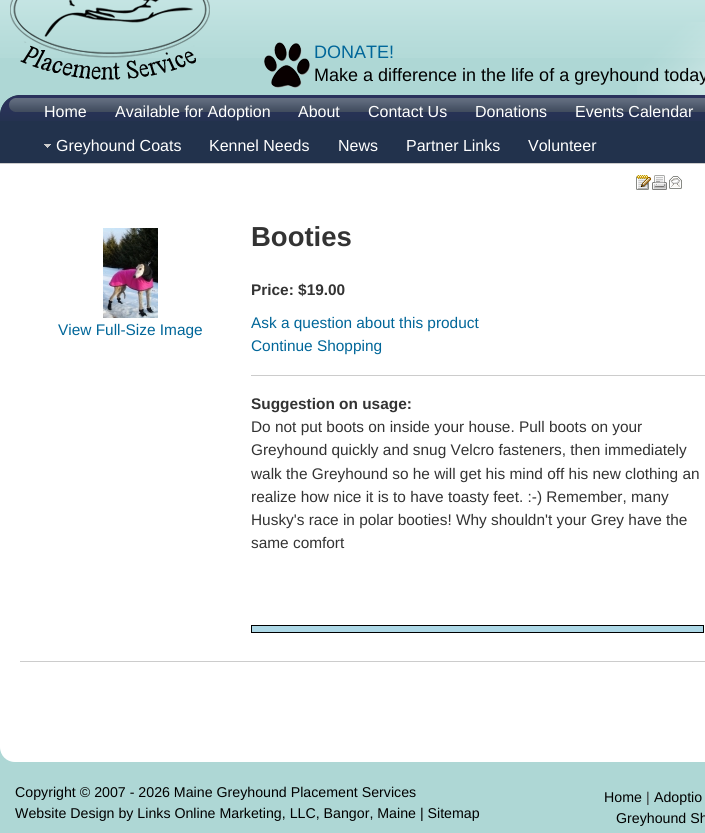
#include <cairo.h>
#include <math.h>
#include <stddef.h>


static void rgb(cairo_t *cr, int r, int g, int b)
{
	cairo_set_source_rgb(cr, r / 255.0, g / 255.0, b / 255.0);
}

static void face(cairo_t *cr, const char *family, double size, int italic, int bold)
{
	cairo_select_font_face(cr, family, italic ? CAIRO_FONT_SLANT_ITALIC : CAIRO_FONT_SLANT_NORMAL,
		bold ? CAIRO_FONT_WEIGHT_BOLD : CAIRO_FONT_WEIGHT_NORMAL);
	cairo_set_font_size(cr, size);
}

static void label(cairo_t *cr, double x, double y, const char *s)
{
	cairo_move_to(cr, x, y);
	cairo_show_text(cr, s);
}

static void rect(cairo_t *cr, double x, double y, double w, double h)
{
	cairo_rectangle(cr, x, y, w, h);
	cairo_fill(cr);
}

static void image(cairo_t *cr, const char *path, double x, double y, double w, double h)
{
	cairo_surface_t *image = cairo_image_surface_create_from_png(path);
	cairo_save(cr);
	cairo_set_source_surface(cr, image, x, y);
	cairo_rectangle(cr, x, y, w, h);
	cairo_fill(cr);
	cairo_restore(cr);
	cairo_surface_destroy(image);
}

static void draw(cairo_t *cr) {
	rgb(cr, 174, 215, 213);
	cairo_paint(cr);
	image(cr, "image0.png", 0, 0, 705, 58);
	image(cr, "image1.png", 10, 0, 200, 80);
	image(cr, "image2.png", 637, 22, 68, 73);
	image(cr, "image3.png", 264, 42, 46, 46);
	face(cr, "Liberation Sans", 18, 0, 0);
	rgb(cr, 0, 102, 153);
	label(cr, 314, 58, "DONATE!");
	rgb(cr, 0, 0, 0);
	label(cr, 314, 81, "Make a difference in the life of a greyhound today");
	rgb(cr, 204, 204, 204);
	rect(cr, 0, 163, 705, 1);
	rgb(cr, 34, 50, 76);
	cairo_new_path(cr);
	cairo_move_to(cr, 20, 95);
	cairo_line_to(cr, 705, 95);
	cairo_curve_to(cr, 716, 95, 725, 104, 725, 115);
	cairo_line_to(cr, 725, 163);
	cairo_line_to(cr, 0, 163);
	cairo_line_to(cr, 0, 115);
	cairo_curve_to(cr, 0, 104, 9, 95, 20, 95);
	cairo_close_path(cr);
	cairo_fill(cr);
	image(cr, "image4.png", 0, 95, 705, 26);
	face(cr, "Liberation Sans", 16, 0, 0);
	rgb(cr, 255, 255, 255);
	label(cr, 44, 117, "Home");
	label(cr, 115, 117, "Available for Adoption");
	label(cr, 298, 117, "About");
	label(cr, 368, 117, "Contact Us");
	label(cr, 475, 117, "Donations");
	label(cr, 575, 117, "Events Calendar");
	image(cr, "image5.png", 44, 144, 7, 4);
	label(cr, 56, 151, "Greyhound Coats");
	label(cr, 209, 151, "Kennel Needs");
	label(cr, 338, 151, "News");
	label(cr, 406, 151, "Partner Links");
	label(cr, 528, 151, "Volunteer");
	cairo_new_path(cr);
	cairo_move_to(cr, 0, 164);
	cairo_line_to(cr, 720, 164);
	cairo_line_to(cr, 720, 747);
	cairo_curve_to(cr, 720, 755.5, 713.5, 762, 705, 762);
	cairo_line_to(cr, 15, 762);
	cairo_curve_to(cr, 6.5, 762, 0, 755.5, 0, 747);
	cairo_close_path(cr);
	cairo_fill(cr);
	image(cr, "image6.png", 636, 175, 15, 15);
	image(cr, "image7.png", 652, 175, 15, 15);
	image(cr, "image8.png", 669, 176, 13, 13);
	face(cr, "Liberation Sans", 27.5, 0, 1);
	rgb(cr, 51, 51, 51);
	label(cr, 251, 246, "Booties");
	image(cr, "image9.png", 103, 228, 55, 90);
	face(cr, "Liberation Sans", 15.4, 0, 0);
	rgb(cr, 0, 102, 153);
	label(cr, 58, 335, "View Full-Size Image");
	face(cr, "Liberation Sans", 15.4, 0, 1);
	rgb(cr, 51, 51, 51);
	label(cr, 251, 295, "Price: $19.00");
	face(cr, "Liberation Sans", 15.4, 0, 0);
	rgb(cr, 0, 102, 153);
	label(cr, 251, 328, "Ask a question about this product");
	label(cr, 251, 351, "Continue Shopping");
	rgb(cr, 204, 204, 204);
	rect(cr, 251, 375, 454, 1);
	face(cr, "Liberation Sans", 15.4, 0, 1);
	rgb(cr, 51, 51, 51);
	label(cr, 251, 409, "Suggestion on usage:");
	face(cr, "Liberation Sans", 15.4, 0, 0);
	label(cr, 251, 432, "Do not put boots on inside your house. Pull boots on your");
	label(cr, 251, 455, "Greyhound quickly and snug Velcro fasteners, then immediately");
	label(cr, 251, 479, "walk the Greyhound so he will get his mind off his new clothing an");
	label(cr, 251, 502, "realize how nice it is to have toasty feet. :-) Remember, many");
	label(cr, 251, 525, "Husky's race in polar booties! Why shouldn't your Grey have the");
	label(cr, 251, 548, "same comfort");
	rgb(cr, 173, 216, 230);
	cairo_rectangle(cr, 251.5, 625.5, 452, 7);
	cairo_fill_preserve(cr);
	rgb(cr, 0, 0, 0);
	cairo_set_line_width(cr, 1);
	cairo_stroke(cr);
	rgb(cr, 204, 204, 204);
	rect(cr, 20, 661, 685, 1);
	face(cr, "Liberation Sans", 14.2, 0, 0);
	rgb(cr, 0, 0, 0);
	label(cr, 15, 797, "Copyright © 2007 - 2026 Maine Greyhound Placement Services");
	label(cr, 15, 818, "Website Design by Links Online Marketing, LLC, Bangor, Maine | Sitemap");
	label(cr, 604, 802, "Home");
	rgb(cr, 51, 51, 51);
	label(cr, 646, 802, "|");
	rgb(cr, 0, 0, 0);
	label(cr, 654, 802, "Adoptio");
	label(cr, 616, 823, "Greyhound Sh");
}

int main(void) {
	cairo_surface_t *surface = cairo_image_surface_create(CAIRO_FORMAT_RGB24, 705, 833);
	cairo_t *cr = cairo_create(surface);
	cairo_font_options_t *options = cairo_font_options_create();
	cairo_font_options_set_hint_metrics(options, CAIRO_HINT_METRICS_OFF);
	cairo_font_options_set_hint_style(options, CAIRO_HINT_STYLE_NONE);
	cairo_set_font_options(cr, options);
	cairo_set_miter_limit(cr, 4);
	draw(cr);
	cairo_surface_write_to_png(surface, "render.png");
	cairo_font_options_destroy(options);
	cairo_destroy(cr);
	cairo_surface_destroy(surface);
	return 0;
}
